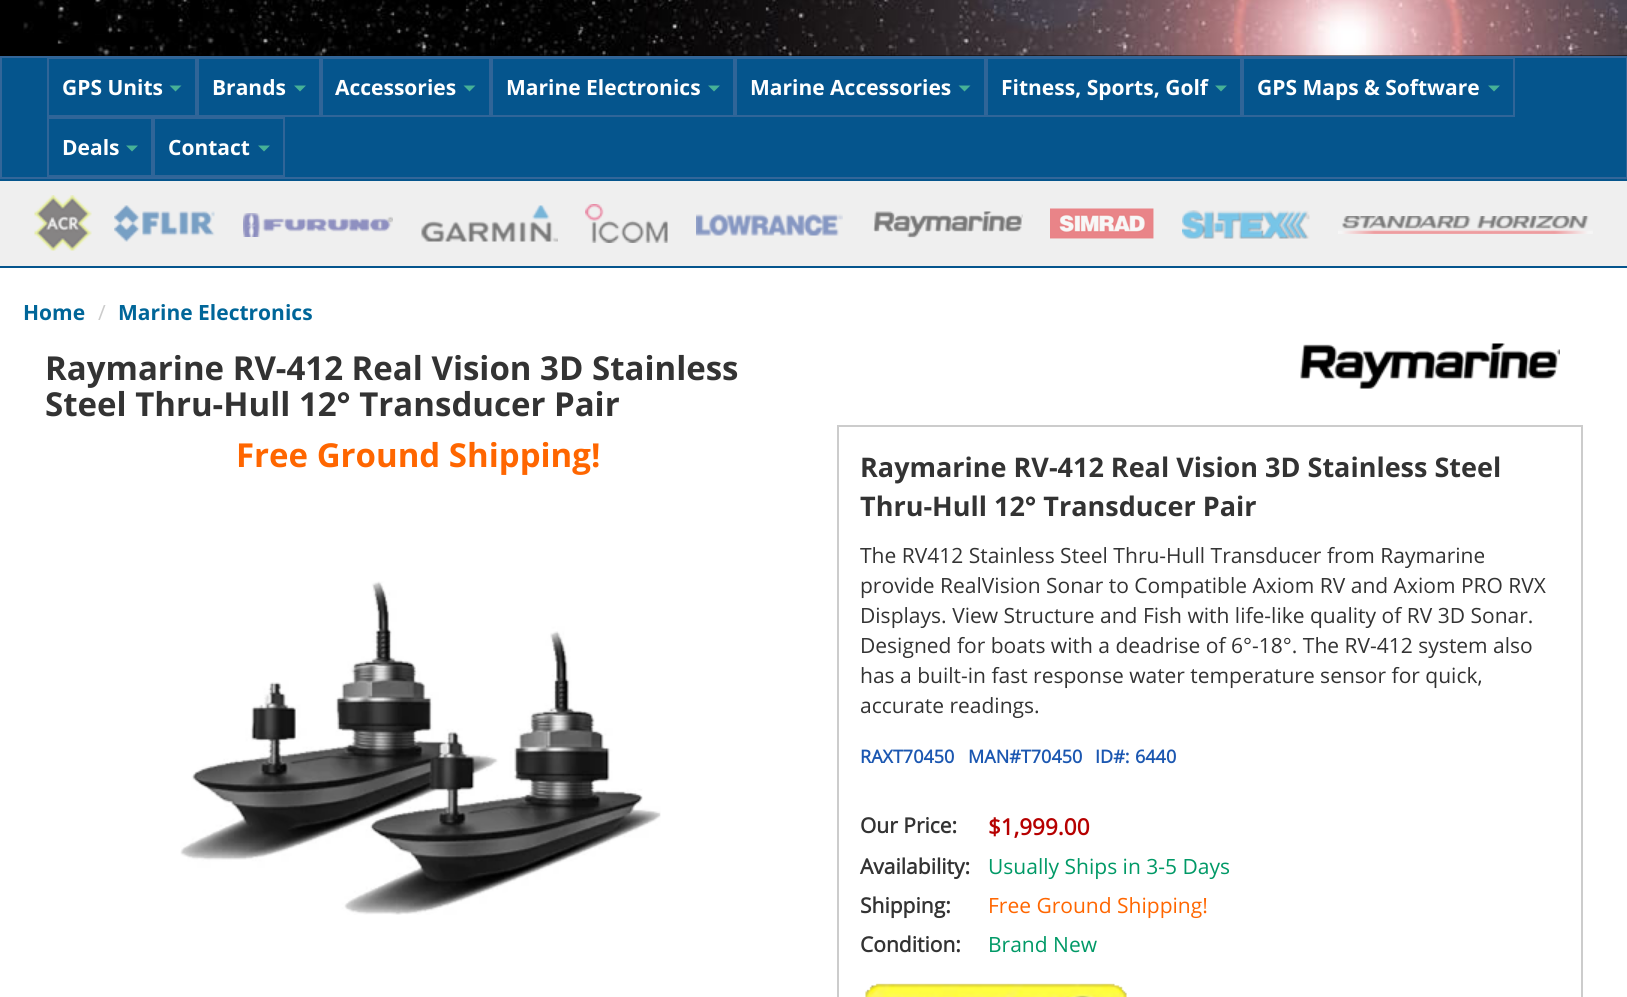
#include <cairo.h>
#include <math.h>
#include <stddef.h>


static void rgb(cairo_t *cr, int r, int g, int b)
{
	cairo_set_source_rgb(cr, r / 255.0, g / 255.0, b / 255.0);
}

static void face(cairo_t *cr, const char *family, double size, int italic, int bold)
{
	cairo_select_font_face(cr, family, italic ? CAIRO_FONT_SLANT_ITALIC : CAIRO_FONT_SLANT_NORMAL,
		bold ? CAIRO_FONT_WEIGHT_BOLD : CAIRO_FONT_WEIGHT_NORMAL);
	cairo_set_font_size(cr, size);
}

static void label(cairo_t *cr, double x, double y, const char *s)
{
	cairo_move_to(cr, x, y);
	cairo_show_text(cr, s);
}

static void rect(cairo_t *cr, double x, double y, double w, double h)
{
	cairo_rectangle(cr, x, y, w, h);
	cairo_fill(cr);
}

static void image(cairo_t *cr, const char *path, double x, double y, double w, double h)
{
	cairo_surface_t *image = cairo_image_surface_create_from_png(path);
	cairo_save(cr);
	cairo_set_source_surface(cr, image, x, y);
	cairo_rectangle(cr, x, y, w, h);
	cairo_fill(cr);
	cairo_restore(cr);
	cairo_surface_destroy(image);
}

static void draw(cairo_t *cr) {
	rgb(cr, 255, 255, 255);
	cairo_paint(cr);
	rgb(cr, 0, 0, 0);
	rect(cr, 0, 0, 1627, 56);
	image(cr, "image0.png", 23, 0, 1604, 56);
	rgb(cr, 5, 85, 141);
	cairo_rectangle(cr, 1, 57, 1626, 121);
	cairo_fill_preserve(cr);
	rgb(cr, 51, 102, 153);
	cairo_stroke(cr);
	cairo_rectangle(cr, 48, 58, 148, 58);
	rgb(cr, 48, 101, 152);
	cairo_stroke(cr);
	face(cr, "Open Sans", 21, 0, 1);
	rgb(cr, 255, 255, 255);
	label(cr, 62, 95, "GPS Units");
	rgb(cr, 70, 177, 151);
	cairo_new_path(cr);
	cairo_move_to(cr, 169.5, 85.5);
	cairo_line_to(cr, 181.5, 85.5);
	cairo_line_to(cr, 175.5, 91.5);
	cairo_close_path(cr);
	cairo_fill(cr);
	cairo_rectangle(cr, 198, 58, 122, 58);
	rgb(cr, 48, 101, 152);
	cairo_stroke(cr);
	rgb(cr, 255, 255, 255);
	label(cr, 212, 95, "Brands");
	rgb(cr, 70, 177, 151);
	cairo_new_path(cr);
	cairo_move_to(cr, 294, 85.5);
	cairo_line_to(cr, 306, 85.5);
	cairo_line_to(cr, 300, 91.5);
	cairo_close_path(cr);
	cairo_fill(cr);
	cairo_rectangle(cr, 322, 58, 168, 58);
	rgb(cr, 48, 101, 152);
	cairo_stroke(cr);
	rgb(cr, 255, 255, 255);
	label(cr, 335, 95, "Accessories");
	rgb(cr, 70, 177, 151);
	cairo_new_path(cr);
	cairo_move_to(cr, 463.5, 85.5);
	cairo_line_to(cr, 475.5, 85.5);
	cairo_line_to(cr, 469.5, 91.5);
	cairo_close_path(cr);
	cairo_fill(cr);
	cairo_rectangle(cr, 492, 58, 242, 58);
	rgb(cr, 48, 101, 152);
	cairo_stroke(cr);
	rgb(cr, 255, 255, 255);
	label(cr, 506, 95, "Marine Electronics");
	rgb(cr, 70, 177, 151);
	cairo_new_path(cr);
	cairo_move_to(cr, 708, 85.5);
	cairo_line_to(cr, 720, 85.5);
	cairo_line_to(cr, 714, 91.5);
	cairo_close_path(cr);
	cairo_fill(cr);
	cairo_rectangle(cr, 736, 58, 249, 58);
	rgb(cr, 48, 101, 152);
	cairo_stroke(cr);
	rgb(cr, 255, 255, 255);
	label(cr, 750, 95, "Marine Accessories");
	rgb(cr, 70, 177, 151);
	cairo_new_path(cr);
	cairo_move_to(cr, 958.5, 85.5);
	cairo_line_to(cr, 970.5, 85.5);
	cairo_line_to(cr, 964.5, 91.5);
	cairo_close_path(cr);
	cairo_fill(cr);
	cairo_rectangle(cr, 987, 58, 254, 58);
	rgb(cr, 48, 101, 152);
	cairo_stroke(cr);
	rgb(cr, 255, 255, 255);
	label(cr, 1001, 95, "Fitness, Sports, Golf");
	rgb(cr, 70, 177, 151);
	cairo_new_path(cr);
	cairo_move_to(cr, 1215, 85.5);
	cairo_line_to(cr, 1227, 85.5);
	cairo_line_to(cr, 1221, 91.5);
	cairo_close_path(cr);
	cairo_fill(cr);
	cairo_rectangle(cr, 1243, 58, 271, 58);
	rgb(cr, 48, 101, 152);
	cairo_stroke(cr);
	rgb(cr, 255, 255, 255);
	label(cr, 1257, 95, "GPS Maps & Software");
	rgb(cr, 70, 177, 151);
	cairo_new_path(cr);
	cairo_move_to(cr, 1488, 85.5);
	cairo_line_to(cr, 1500, 85.5);
	cairo_line_to(cr, 1494, 91.5);
	cairo_close_path(cr);
	cairo_fill(cr);
	cairo_rectangle(cr, 48, 118, 104, 58);
	rgb(cr, 48, 101, 152);
	cairo_stroke(cr);
	rgb(cr, 255, 255, 255);
	label(cr, 62, 155, "Deals");
	rgb(cr, 70, 177, 151);
	cairo_new_path(cr);
	cairo_move_to(cr, 126, 145.5);
	cairo_line_to(cr, 138, 145.5);
	cairo_line_to(cr, 132, 151.5);
	cairo_close_path(cr);
	cairo_fill(cr);
	cairo_rectangle(cr, 154, 118, 130, 58);
	rgb(cr, 48, 101, 152);
	cairo_stroke(cr);
	rgb(cr, 255, 255, 255);
	label(cr, 168, 155, "Contact");
	rgb(cr, 70, 177, 151);
	cairo_new_path(cr);
	cairo_move_to(cr, 258, 145.5);
	cairo_line_to(cr, 270, 145.5);
	cairo_line_to(cr, 264, 151.5);
	cairo_close_path(cr);
	cairo_fill(cr);
	rgb(cr, 239, 239, 239);
	rect(cr, 0, 181, 1627, 85);
	rgb(cr, 5, 85, 141);
	rect(cr, 0, 179, 1627, 2);
	rect(cr, 0, 266, 1627, 2);
	image(cr, "image1.png", 34, 195, 58, 56);
	image(cr, "image2.png", 114, 205, 101, 37);
	image(cr, "image3.png", 243, 213, 150, 24);
	image(cr, "image4.png", 421, 205, 137, 37);
	image(cr, "image5.png", 585, 204, 83, 39);
	image(cr, "image6.png", 696, 214, 147, 22);
	image(cr, "image7.png", 873, 211, 150, 27);
	image(cr, "image8.png", 1050, 208, 104, 31);
	image(cr, "image9.png", 1182, 210, 128, 29);
	image(cr, "image10.png", 1338, 216, 255, 18);
	rgb(cr, 0, 102, 153);
	label(cr, 23, 320, "Home");
	face(cr, "Open Sans", 21, 0, 0);
	rgb(cr, 204, 204, 204);
	label(cr, 98, 320, "/");
	face(cr, "Open Sans", 21, 0, 1);
	rgb(cr, 0, 102, 153);
	label(cr, 118, 320, "Marine Electronics");
	face(cr, "Open Sans", 33, 0, 1);
	rgb(cr, 51, 51, 51);
	label(cr, 45, 380, "Raymarine RV-412 Real Vision 3D Stainless");
	label(cr, 45, 416, "Steel Thru-Hull 12° Transducer Pair");
	rgb(cr, 255, 102, 0);
	label(cr, 236, 467, "Free Ground Shipping!");
	image(cr, "image11.png", 180, 581, 481, 334);
	image(cr, "image12.png", 1300, 343, 260, 46);
	cairo_rectangle(cr, 838, 426, 744, 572);
	rgb(cr, 204, 204, 204);
	cairo_stroke(cr);
	face(cr, "Open Sans", 27, 0, 1);
	rgb(cr, 51, 51, 51);
	label(cr, 860, 477, "Raymarine RV-412 Real Vision 3D Stainless Steel");
	label(cr, 860, 516, "Thru-Hull 12° Transducer Pair");
	face(cr, "Open Sans", 21, 0, 0);
	label(cr, 860, 563, "The RV412 Stainless Steel Thru-Hull Transducer from Raymarine");
	label(cr, 860, 593, "provide RealVision Sonar to Compatible Axiom RV and Axiom PRO RVX");
	label(cr, 860, 623, "Displays. View Structure and Fish with life-like quality of RV 3D Sonar.");
	label(cr, 860, 653, "Designed for boats with a deadrise of 6°-18°. The RV-412 system also");
	label(cr, 860, 683, "has a built-in fast response water temperature sensor for quick,");
	label(cr, 860, 713, "accurate readings.");
	face(cr, "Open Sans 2", 18, 0, 1);
	rgb(cr, 27, 87, 177);
	label(cr, 860, 763, "RAXT70450");
	label(cr, 968, 763, "MAN#T70450");
	label(cr, 1095, 763, "ID#:");
	label(cr, 1135, 763, "6440");
	face(cr, "Open Sans 2", 21, 0, 1);
	rgb(cr, 51, 51, 51);
	label(cr, 860, 833, "Our Price:");
	face(cr, "Open Sans 2", 22.5, 0, 1);
	rgb(cr, 182, 0, 0);
	label(cr, 988, 835, "$1,999.00");
	face(cr, "Open Sans 2", 21, 0, 1);
	rgb(cr, 51, 51, 51);
	label(cr, 860, 874, "Availability:");
	face(cr, "Open Sans", 21, 0, 0);
	rgb(cr, 0, 153, 102);
	label(cr, 988, 874, "Usually Ships in 3-5 Days");
	face(cr, "Open Sans 2", 21, 0, 1);
	rgb(cr, 51, 51, 51);
	label(cr, 860, 913, "Shipping:");
	face(cr, "Open Sans", 21, 0, 0);
	rgb(cr, 255, 102, 0);
	label(cr, 988, 913, "Free Ground Shipping!");
	face(cr, "Open Sans 2", 21, 0, 1);
	rgb(cr, 51, 51, 51);
	label(cr, 860, 952, "Condition:");
	face(cr, "Open Sans", 21, 0, 0);
	rgb(cr, 0, 153, 102);
	label(cr, 988, 952, "Brand New");
	image(cr, "image13.png", 865, 983, 262, 14);
}

int main(void) {
	cairo_surface_t *surface = cairo_image_surface_create(CAIRO_FORMAT_RGB24, 1627, 997);
	cairo_t *cr = cairo_create(surface);
	cairo_font_options_t *options = cairo_font_options_create();
	cairo_font_options_set_hint_metrics(options, CAIRO_HINT_METRICS_OFF);
	cairo_font_options_set_hint_style(options, CAIRO_HINT_STYLE_NONE);
	cairo_set_font_options(cr, options);
	cairo_set_miter_limit(cr, 4);
	draw(cr);
	cairo_surface_write_to_png(surface, "render.png");
	cairo_font_options_destroy(options);
	cairo_destroy(cr);
	cairo_surface_destroy(surface);
	return 0;
}
